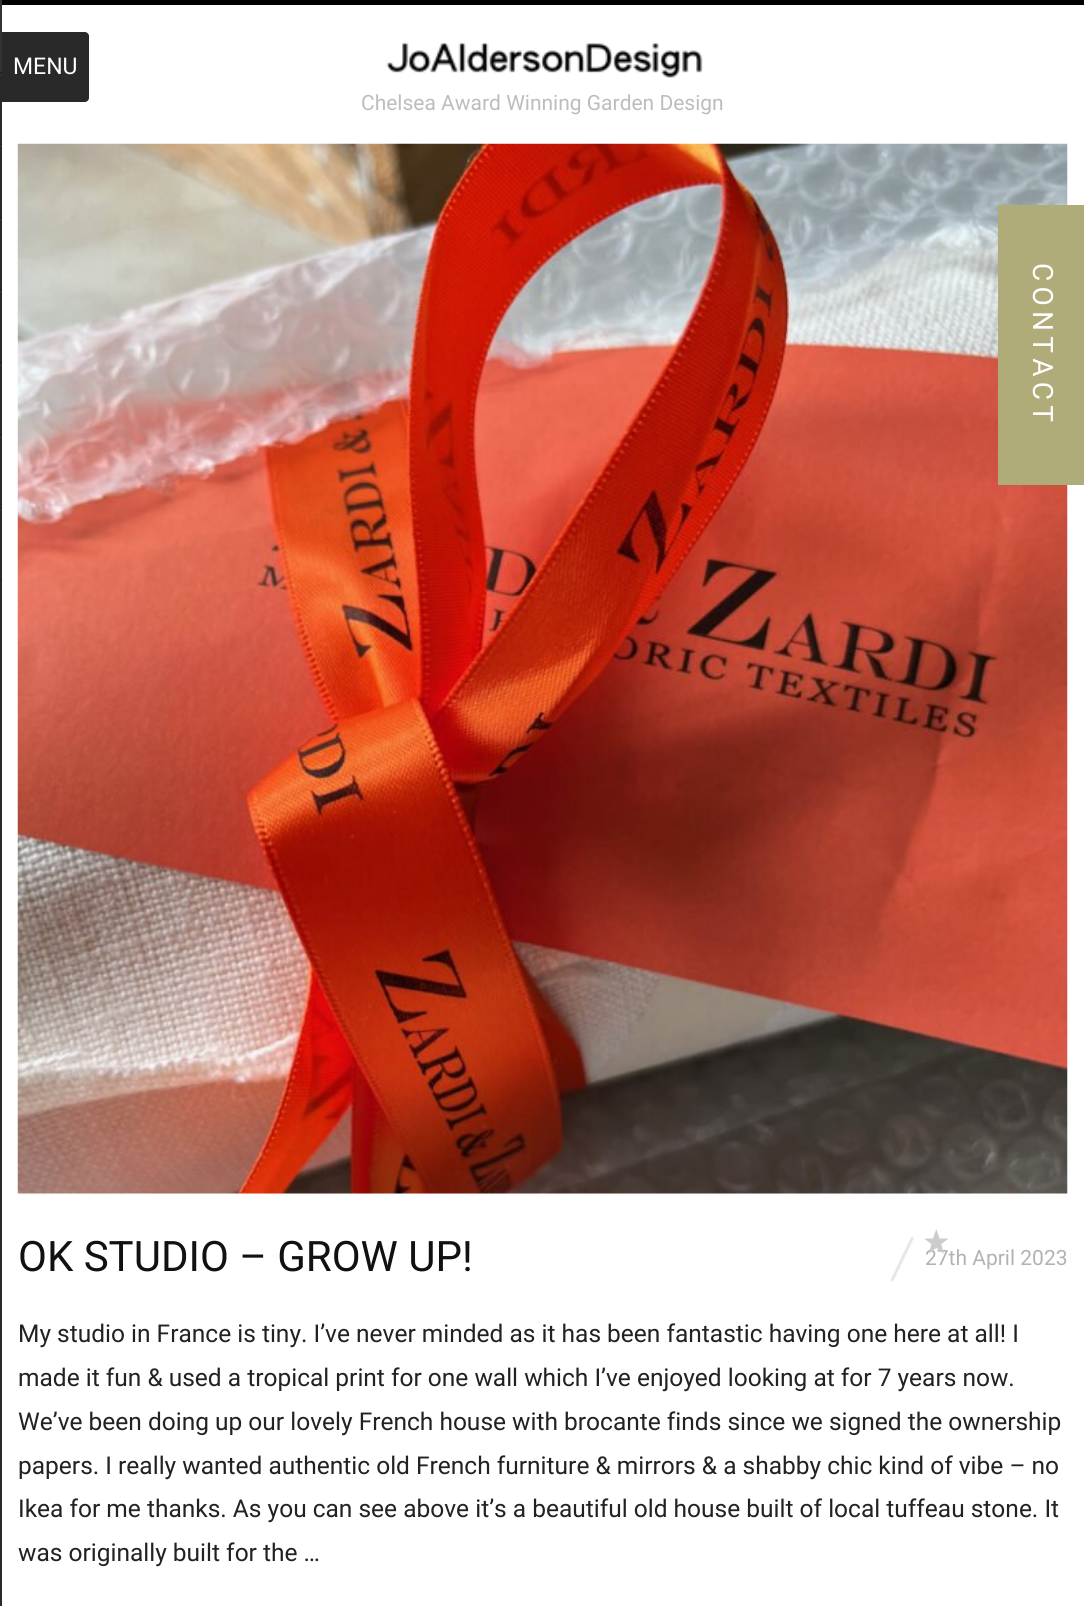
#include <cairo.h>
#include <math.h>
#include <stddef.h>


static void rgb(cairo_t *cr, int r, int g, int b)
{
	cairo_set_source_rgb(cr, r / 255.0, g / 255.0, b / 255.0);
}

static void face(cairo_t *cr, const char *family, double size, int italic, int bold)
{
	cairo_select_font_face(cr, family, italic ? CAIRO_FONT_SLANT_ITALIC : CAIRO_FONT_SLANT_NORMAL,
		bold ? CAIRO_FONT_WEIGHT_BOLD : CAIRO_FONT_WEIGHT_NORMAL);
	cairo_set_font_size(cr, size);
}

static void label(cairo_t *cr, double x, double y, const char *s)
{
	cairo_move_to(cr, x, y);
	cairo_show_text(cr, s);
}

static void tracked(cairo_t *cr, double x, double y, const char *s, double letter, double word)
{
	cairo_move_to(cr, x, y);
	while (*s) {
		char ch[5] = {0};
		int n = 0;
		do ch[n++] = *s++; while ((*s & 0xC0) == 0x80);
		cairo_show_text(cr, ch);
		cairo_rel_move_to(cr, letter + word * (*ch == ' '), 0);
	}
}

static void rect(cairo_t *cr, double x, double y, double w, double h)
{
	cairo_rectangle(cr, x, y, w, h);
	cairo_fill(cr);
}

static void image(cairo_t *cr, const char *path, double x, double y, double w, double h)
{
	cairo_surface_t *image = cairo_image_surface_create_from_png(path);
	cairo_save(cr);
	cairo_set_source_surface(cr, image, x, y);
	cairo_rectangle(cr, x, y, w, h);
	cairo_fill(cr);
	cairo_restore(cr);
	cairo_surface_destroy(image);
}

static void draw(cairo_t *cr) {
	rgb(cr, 255, 255, 255);
	cairo_paint(cr);
	rgb(cr, 41, 41, 41);
	rect(cr, 0, 76, 2, 1530);
	rgb(cr, 0, 0, 0);
	rect(cr, 0, 0, 1084, 5);
	rgb(cr, 51, 51, 51);
	rect(cr, 0, 0, 2, 76);
	rgb(cr, 34, 34, 34);
	rect(cr, 0, 72, 2, 2);
	rect(cr, 0, 144, 2, 1);
	rgb(cr, 51, 51, 51);
	rect(cr, 0, 145, 2, 2);
	rgb(cr, 34, 34, 34);
	rect(cr, 0, 217, 2, 2);
	rgb(cr, 51, 51, 51);
	rect(cr, 0, 219, 2, 2);
	rgb(cr, 34, 34, 34);
	rect(cr, 0, 289, 2, 2);
	rgb(cr, 51, 51, 51);
	rect(cr, 0, 291, 2, 2);
	rgb(cr, 34, 34, 34);
	rect(cr, 0, 362, 2, 2);
	rgb(cr, 51, 51, 51);
	rect(cr, 0, 364, 2, 2);
	rgb(cr, 34, 34, 34);
	rect(cr, 0, 434, 2, 2);
	rgb(cr, 51, 51, 51);
	rect(cr, 0, 436, 2, 2);
	rgb(cr, 34, 34, 34);
	rect(cr, 0, 508, 2, 1);
	rgb(cr, 51, 51, 51);
	rect(cr, 0, 509, 2, 2);
	rgb(cr, 34, 34, 34);
	rect(cr, 0, 579, 2, 2);
	rgb(cr, 41, 41, 41);
	cairo_new_path(cr);
	cairo_move_to(cr, 2, 32);
	cairo_line_to(cr, 85, 32);
	cairo_curve_to(cr, 87, 32, 89, 34, 89, 36);
	cairo_line_to(cr, 89, 98);
	cairo_curve_to(cr, 89, 100, 87, 102, 85, 102);
	cairo_line_to(cr, 2, 102);
	cairo_close_path(cr);
	cairo_fill(cr);
	face(cr, "Roboto", 23, 0, 0);
	rgb(cr, 255, 255, 255);
	label(cr, 13, 74, "MENU");
	image(cr, "image0.png", 386, 42, 317, 36);
	face(cr, "Roboto", 21, 0, 0);
	rgb(cr, 189, 189, 189);
	label(cr, 361, 110, "Chelsea Award Winning Garden Design");
	image(cr, "image1.png", 17, 143, 1051, 1051);
	rgb(cr, 176, 172, 122);
	rect(cr, 998, 205, 86, 280);
	face(cr, "Roboto", 28, 0, 0);
	rgb(cr, 255, 255, 255);
	cairo_save(cr);
	cairo_translate(cr, 1033, 263);
	cairo_rotate(cr, 90 * M_PI / 180);
	tracked(cr, 0, 0, "CONTACT", 5.25, 0);
	cairo_restore(cr);
	face(cr, "Roboto", 42, 0, 0);
	rgb(cr, 17, 17, 17);
	label(cr, 18, 1271, "OK STUDIO – GROW UP!");
	face(cr, "Roboto", 21, 0, 0);
	rgb(cr, 178, 178, 178);
	label(cr, 925, 1265, "27th April 2023");
	image(cr, "image2.png", 924, 1229, 25, 25);
	image(cr, "image3.png", 890, 1236, 24, 46);
	face(cr, "Roboto", 24.5, 0, 0);
	rgb(cr, 34, 34, 34);
	label(cr, 18, 1342, "My studio in France is tiny. I’ve never minded as it has been fantastic having one here at all! I");
	label(cr, 18, 1386, "made it fun & used a tropical print for one wall which I’ve enjoyed looking at for 7 years now.");
	label(cr, 18, 1430, "We’ve been doing up our lovely French house with brocante finds since we signed the ownership");
	label(cr, 18, 1474, "papers. I really wanted authentic old French furniture & mirrors & a shabby chic kind of vibe – no");
	label(cr, 18, 1517, "Ikea for me thanks. As you can see above it’s a beautiful old house built of local tuffeau stone. It");
	label(cr, 18, 1561, "was originally built for the …");
}

int main(void) {
	cairo_surface_t *surface = cairo_image_surface_create(CAIRO_FORMAT_RGB24, 1084, 1606);
	cairo_t *cr = cairo_create(surface);
	cairo_font_options_t *options = cairo_font_options_create();
	cairo_font_options_set_hint_metrics(options, CAIRO_HINT_METRICS_OFF);
	cairo_font_options_set_hint_style(options, CAIRO_HINT_STYLE_NONE);
	cairo_set_font_options(cr, options);
	cairo_set_miter_limit(cr, 4);
	draw(cr);
	cairo_surface_write_to_png(surface, "render.png");
	cairo_font_options_destroy(options);
	cairo_destroy(cr);
	cairo_surface_destroy(surface);
	return 0;
}
